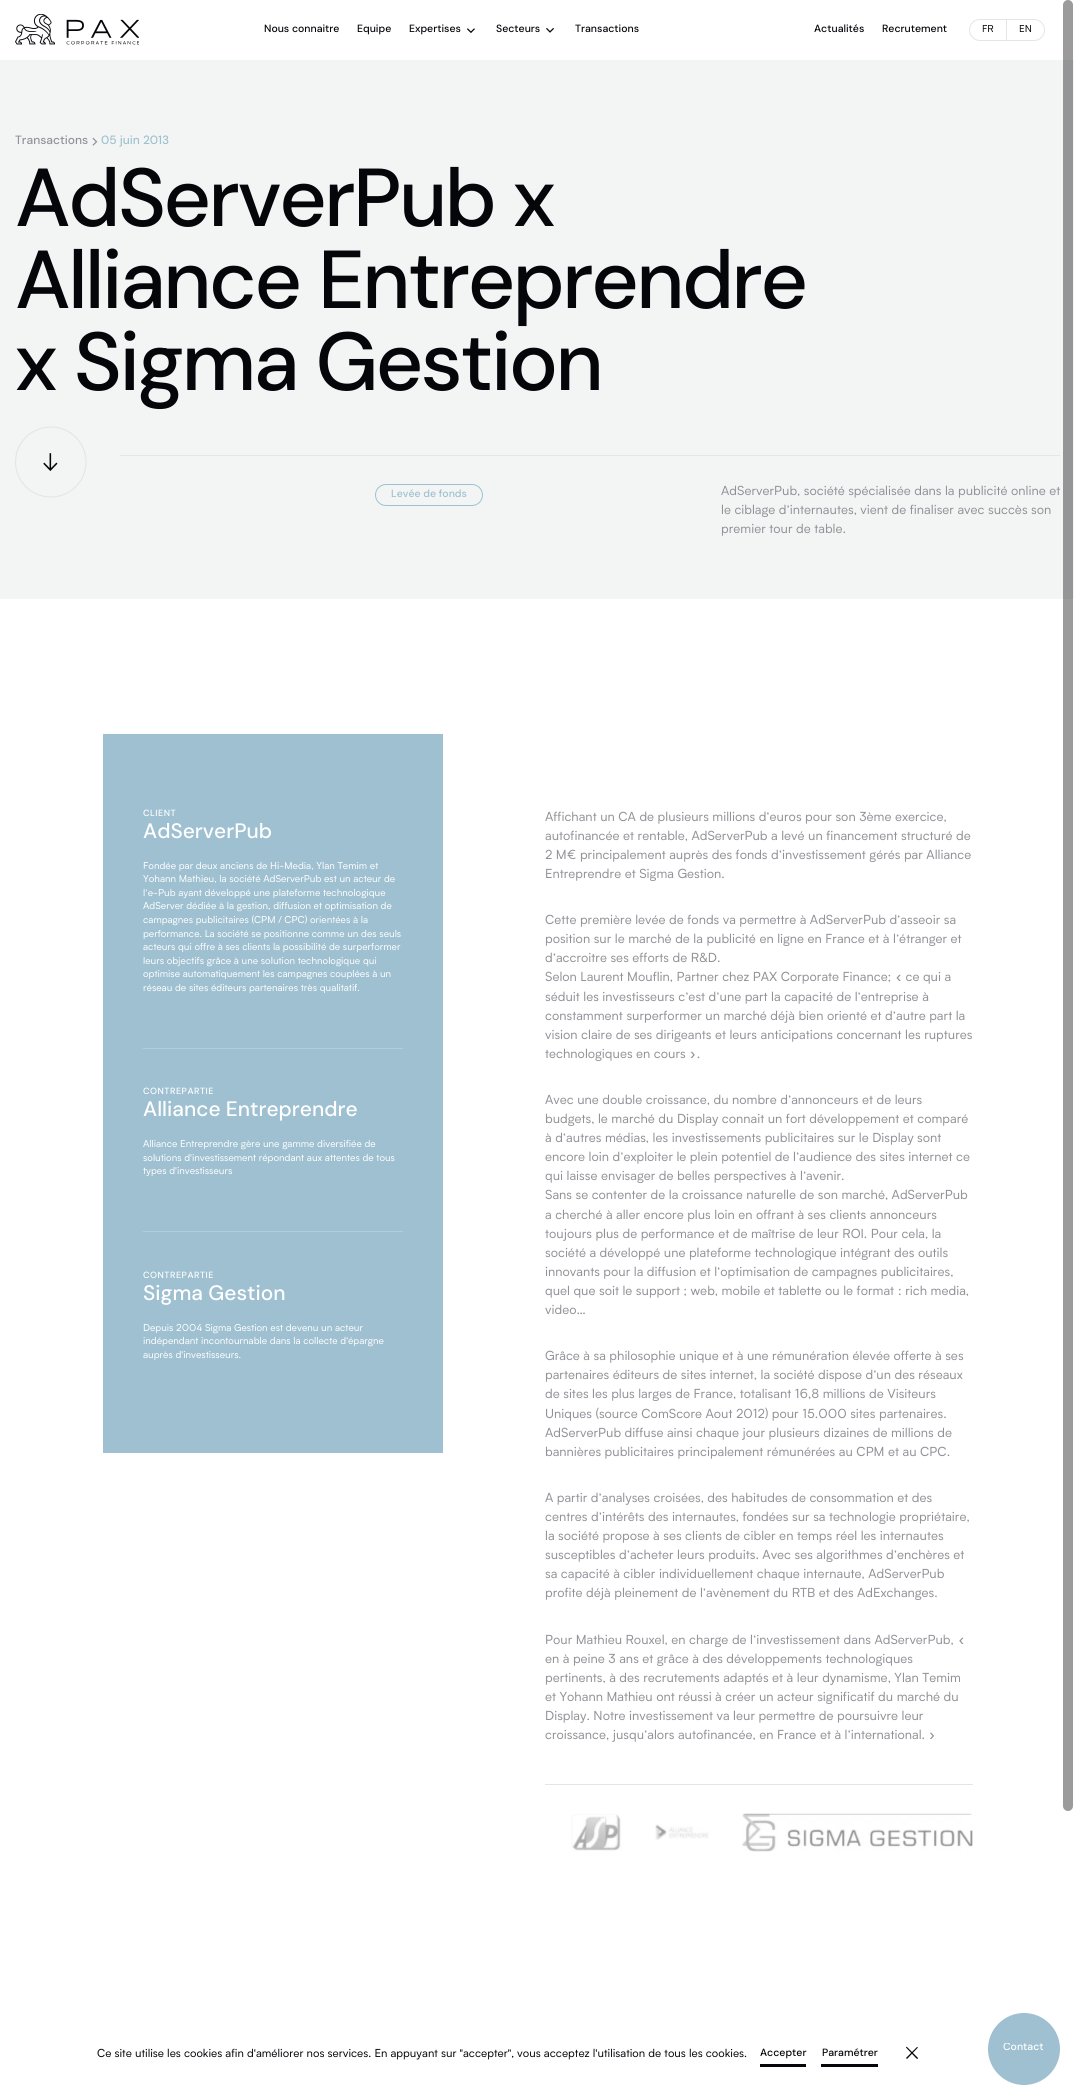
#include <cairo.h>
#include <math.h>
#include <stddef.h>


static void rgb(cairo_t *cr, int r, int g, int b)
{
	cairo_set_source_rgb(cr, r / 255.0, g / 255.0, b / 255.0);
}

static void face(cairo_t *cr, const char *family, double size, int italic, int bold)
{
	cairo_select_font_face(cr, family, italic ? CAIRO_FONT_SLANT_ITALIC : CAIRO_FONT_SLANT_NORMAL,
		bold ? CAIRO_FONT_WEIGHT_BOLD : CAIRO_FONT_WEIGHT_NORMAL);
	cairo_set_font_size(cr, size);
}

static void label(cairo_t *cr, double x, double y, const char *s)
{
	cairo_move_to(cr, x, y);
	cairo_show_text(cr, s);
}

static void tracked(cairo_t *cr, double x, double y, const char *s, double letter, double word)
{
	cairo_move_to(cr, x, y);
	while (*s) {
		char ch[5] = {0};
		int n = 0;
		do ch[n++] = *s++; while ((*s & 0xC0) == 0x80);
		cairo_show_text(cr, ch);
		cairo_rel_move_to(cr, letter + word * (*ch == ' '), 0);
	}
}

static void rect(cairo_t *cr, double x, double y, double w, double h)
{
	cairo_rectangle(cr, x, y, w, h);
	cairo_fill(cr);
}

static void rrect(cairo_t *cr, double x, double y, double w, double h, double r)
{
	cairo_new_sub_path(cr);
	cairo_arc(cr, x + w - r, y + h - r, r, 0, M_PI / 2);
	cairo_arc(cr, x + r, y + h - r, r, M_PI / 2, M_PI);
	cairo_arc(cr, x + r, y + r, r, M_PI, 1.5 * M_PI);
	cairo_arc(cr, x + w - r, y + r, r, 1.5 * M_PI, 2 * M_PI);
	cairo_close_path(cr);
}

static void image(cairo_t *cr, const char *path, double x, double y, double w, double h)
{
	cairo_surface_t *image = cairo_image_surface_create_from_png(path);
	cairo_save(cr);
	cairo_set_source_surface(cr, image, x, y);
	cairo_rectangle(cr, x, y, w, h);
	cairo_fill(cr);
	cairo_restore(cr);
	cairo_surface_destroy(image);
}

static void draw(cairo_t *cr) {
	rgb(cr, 243, 245, 245);
	cairo_paint(cr);
	rgb(cr, 255, 255, 255);
	rect(cr, 0, 0, 1074, 60);
	image(cr, "image0.png", 15, 14, 40, 31);
	image(cr, "image1.png", 66, 19, 73, 26);
	face(cr, "DM Sans Medium", 10.5, 0, 0);
	rgb(cr, 5, 6, 10);
	label(cr, 264, 32, "Nous connaitre");
	label(cr, 357, 32, "Equipe");
	label(cr, 409, 32, "Expertises");
	image(cr, "image2.png", 467, 28, 8, 5);
	label(cr, 496, 32, "Secteurs");
	image(cr, "image3.png", 546, 28, 8, 5);
	label(cr, 575, 32, "Transactions");
	label(cr, 814, 32, "Actualités");
	label(cr, 882, 32, "Recrutement");
	rrect(cr, 969.5, 19.5, 75, 21, 10.5);
	rgb(cr, 229, 229, 229);
	cairo_set_line_width(cr, 1);
	cairo_stroke(cr);
	face(cr, "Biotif", 9.7, 0, 0);
	rgb(cr, 5, 6, 10);
	label(cr, 982, 32, "FR");
	rgb(cr, 229, 229, 229);
	rect(cr, 1006, 20, 1, 21);
	rgb(cr, 5, 6, 10);
	label(cr, 1019, 32, "EN");
	rgb(cr, 255, 255, 255);
	rect(cr, 0, 599, 1074, 1500);
	cairo_set_source_rgba(cr, 0.02, 0.024, 0.039, 0.4);
	rrect(cr, 1063, 0, 10, 1811, 5);
	cairo_fill(cr);
	face(cr, "DM Sans Medium", 12, 0, 0);
	rgb(cr, 145, 146, 151);
	label(cr, 15, 144, "Transactions");
	image(cr, "image4.png", 92, 137, 6, 9);
	rgb(cr, 158, 192, 208);
	label(cr, 101, 144, "05 juin 2013");
	face(cr, "DM Sans Medium", 82.1, 0, 0);
	rgb(cr, 5, 6, 10);
	tracked(cr, 15, 226, "AdServerPub x", -2.5, 0);
	tracked(cr, 15, 308, "Alliance Entreprendre", -2.5, 0);
	tracked(cr, 15, 390, "x Sigma Gestion", -2.5, 0);
	cairo_new_path(cr);
	cairo_move_to(cr, 86, 462);
	cairo_curve_to(cr, 86, 481.5, 70, 497, 51, 497);
	cairo_curve_to(cr, 31.5, 497, 15.5, 481.5, 15.5, 462);
	cairo_curve_to(cr, 15.5, 442.5, 31.5, 427, 51, 427);
	cairo_curve_to(cr, 70, 427, 86, 442.5, 86, 462);
	cairo_close_path(cr);
	rgb(cr, 229, 229, 229);
	cairo_set_line_width(cr, 1.2);
	cairo_stroke(cr);
	image(cr, "image5.png", 43, 453, 15, 18);
	rect(cr, 120, 455, 940, 1);
	rrect(cr, 375.5, 484.5, 107, 21, 10.5);
	rgb(cr, 158, 192, 208);
	cairo_set_line_width(cr, 1);
	cairo_stroke(cr);
	face(cr, "DM Sans Medium", 10.5, 0, 0);
	label(cr, 391, 497, "Levée de fonds");
	face(cr, "Biotif", 12.7, 0, 0);
	rgb(cr, 145, 146, 151);
	label(cr, 721, 495, "AdServerPub, société spécialisée dans la publicité online et");
	label(cr, 721, 514, "le ciblage d’internautes, vient de finaliser avec succès son");
	label(cr, 721, 533, "premier tour de table.");
	rgb(cr, 158, 192, 208);
	rect(cr, 103, 734, 340, 719);
	rgb(cr, 177, 205, 217);
	rect(cr, 143, 1048, 260, 1);
	face(cr, "DM Sans Medium", 9, 0, 0);
	rgb(cr, 255, 255, 255);
	tracked(cr, 143, 816, "CLIENT", 0.5, 0);
	face(cr, "DM Sans Medium", 20.9, 0, 0);
	label(cr, 143, 838, "AdServerPub");
	face(cr, "Biotif", 9.7, 0, 0);
	label(cr, 143, 869, "Fondée par deux anciens de Hi-Media, Ylan Temim et");
	label(cr, 143, 882, "Yohann Mathieu, la société AdServerPub est un acteur de");
	label(cr, 143, 896, "l’e-Pub ayant développé une plateforme technologique");
	label(cr, 143, 909, "AdServer dédiée à la gestion, diffusion et optimisation de");
	label(cr, 143, 923, "campagnes publicitaires (CPM / CPC) orientées à la");
	label(cr, 143, 937, "performance. La société se positionne comme un des seuls");
	label(cr, 143, 950, "acteurs qui offre à ses clients la possibilité de surperformer");
	label(cr, 143, 964, "leurs objectifs grâce à une solution technologique qui");
	label(cr, 143, 977, "optimise automatiquement les campagnes couplées à un");
	label(cr, 143, 991, "réseau de sites éditeurs partenaires très qualitatif.");
	rgb(cr, 177, 205, 217);
	rect(cr, 143, 1231, 260, 1);
	face(cr, "DM Sans Medium", 9, 0, 0);
	rgb(cr, 255, 255, 255);
	tracked(cr, 143, 1094, "CONTREPARTIE", 0.5, 0);
	face(cr, "DM Sans Medium", 20.9, 0, 0);
	label(cr, 143, 1116, "Alliance Entreprendre");
	face(cr, "Biotif", 9.7, 0, 0);
	label(cr, 143, 1147, "Alliance Entreprendre gère une gamme diversifiée de");
	label(cr, 143, 1161, "solutions d'investissement répondant aux attentes de tous");
	label(cr, 143, 1174, "types d'investisseurs");
	face(cr, "DM Sans Medium", 9, 0, 0);
	tracked(cr, 143, 1278, "CONTREPARTIE", 0.5, 0);
	face(cr, "DM Sans Medium", 20.9, 0, 0);
	label(cr, 143, 1300, "Sigma Gestion");
	face(cr, "Biotif", 9.7, 0, 0);
	label(cr, 143, 1331, "Depuis 2004 Sigma Gestion est devenu un acteur");
	label(cr, 143, 1344, "indépendant incontournable dans la collecte d'épargne");
	label(cr, 143, 1358, "auprès d'investisseurs.");
	rgb(cr, 229, 229, 229);
	rect(cr, 545, 1784, 428, 1);
	face(cr, "Biotif", 12.7, 0, 0);
	rgb(cr, 145, 146, 151);
	label(cr, 545, 821, "Affichant un CA de plusieurs millions d’euros pour son 3ème exercice,");
	label(cr, 545, 840, "autofinancée et rentable, AdServerPub a levé un financement structuré de");
	label(cr, 545, 859, "2 M€ principalement auprès des fonds d’investissement gérés par Alliance");
	label(cr, 545, 878, "Entreprendre et Sigma Gestion.");
	label(cr, 545, 924, "Cette première levée de fonds va permettre à AdServerPub d’asseoir sa");
	label(cr, 545, 943, "position sur le marché de la publicité en ligne en France et à l’étranger et");
	label(cr, 545, 962, "d’accroitre ses efforts de R&D.");
	label(cr, 545, 981, "Selon Laurent Mouflin, Partner chez PAX Corporate Finance; « ce qui a");
	label(cr, 545, 1001, "séduit les investisseurs c’est d’une part la capacité de l’entreprise à");
	label(cr, 545, 1020, "constamment surperformer un marché déjà bien orienté et d’autre part la");
	label(cr, 545, 1039, "vision claire de ses dirigeants et leurs anticipations concernant les ruptures");
	label(cr, 545, 1058, "technologiques en cours ».");
	label(cr, 545, 1104, "Avec une double croissance, du nombre d’annonceurs et de leurs");
	label(cr, 545, 1123, "budgets, le marché du Display connait un fort développement et comparé");
	label(cr, 545, 1142, "à d’autres médias, les investissements publicitaires sur le Display sont");
	label(cr, 545, 1161, "encore loin d’exploiter le plein potentiel de l’audience des sites internet ce");
	label(cr, 545, 1180, "qui laisse envisager de belles perspectives à l’avenir.");
	label(cr, 545, 1199, "Sans se contenter de la croissance naturelle de son marché, AdServerPub");
	label(cr, 545, 1219, "a cherché à aller encore plus loin en offrant à ses clients annonceurs");
	label(cr, 545, 1238, "toujours plus de performance et de maîtrise de leur ROI. Pour cela, la");
	label(cr, 545, 1257, "société a développé une plateforme technologique intégrant des outils");
	label(cr, 545, 1276, "innovants pour la diffusion et l’optimisation de campagnes publicitaires,");
	label(cr, 545, 1295, "quel que soit le support ; web, mobile et tablette ou le format : rich media,");
	label(cr, 545, 1314, "video…");
	label(cr, 545, 1360, "Grâce à sa philosophie unique et à une rémunération élevée offerte à ses");
	label(cr, 545, 1379, "partenaires éditeurs de sites internet, la société dispose d’un des réseaux");
	label(cr, 545, 1398, "de sites les plus larges de France, totalisant 16,8 millions de Visiteurs");
	label(cr, 545, 1418, "Uniques (source ComScore Aout 2012) pour 15.000 sites partenaires.");
	label(cr, 545, 1437, "AdServerPub diffuse ainsi chaque jour plusieurs dizaines de millions de");
	label(cr, 545, 1456, "bannières publicitaires principalement rémunérées au CPM et au CPC.");
	label(cr, 545, 1502, "A partir d’analyses croisées, des habitudes de consommation et des");
	label(cr, 545, 1521, "centres d’intérêts des internautes, fondées sur sa technologie propriétaire,");
	label(cr, 545, 1540, "la société propose à ses clients de cibler en temps réel les internautes");
	label(cr, 545, 1559, "susceptibles d’acheter leurs produits. Avec ses algorithmes d’enchères et");
	label(cr, 545, 1578, "sa capacité à cibler individuellement chaque internaute, AdServerPub");
	label(cr, 545, 1597, "profite déjà pleinement de l’avènement du RTB et des AdExchanges.");
	label(cr, 545, 1644, "Pour Mathieu Rouxel, en charge de l’investissement dans AdServerPub, «");
	label(cr, 545, 1663, "en à peine 3 ans et grâce à des développements technologiques");
	label(cr, 545, 1682, "pertinents, à des recrutements adaptés et à leur dynamisme, Ylan Temim");
	label(cr, 545, 1701, "et Yohann Mathieu ont réussi à créer un acteur significatif du marché du");
	label(cr, 545, 1720, "Display. Notre investissement va leur permettre de poursuivre leur");
	label(cr, 545, 1739, "croissance, jusqu’alors autofinancée, en France et à l’international. »");
	image(cr, "image6.png", 571, 1814, 50, 37);
	image(cr, "image7.png", 655, 1824, 54, 16);
	image(cr, "image8.png", 742, 1813, 231, 39);
	rgb(cr, 158, 192, 208);
	cairo_arc(cr, 1024, 2049, 36, 0, 2 * M_PI);
	cairo_fill(cr);
	cairo_save(cr);
	cairo_rectangle(cr, 988, 2043, 72, 11);
	cairo_clip(cr);
	face(cr, "DM Sans Medium", 10.5, 0, 0);
	rgb(cr, 255, 255, 255);
	label(cr, 1003, 2050, "Contact");
	cairo_restore(cr);
	face(cr, "Biotif", 11.2, 0, 0);
	rgb(cr, 5, 6, 10);
	label(cr, 97, 2057, "Ce site utilise les cookies afin d'améliorer nos services. En appuyant sur \"accepter\", vous acceptez l'utilisation de tous les cookies.");
	face(cr, "DM Sans Medium", 10.5, 0, 0);
	label(cr, 760, 2056, "Accepter");
	rect(cr, 760, 2064, 46, 3);
	label(cr, 822, 2056, "Paramétrer");
	rect(cr, 821, 2064, 57, 3);
	cairo_new_path(cr);
	cairo_move_to(cr, 907, 2047);
	cairo_line_to(cr, 918, 2058);
	cairo_line_to(cr, 918, 2058.5);
	cairo_curve_to(cr, 917, 2059.5, 916, 2058, 915, 2057);
	cairo_line_to(cr, 906, 2047.5);
	cairo_curve_to(cr, 906, 2047, 906.5, 2046.5, 907, 2047);
	cairo_close_path(cr);
	cairo_fill(cr);
	cairo_new_path(cr);
	cairo_move_to(cr, 917.5, 2048);
	cairo_line_to(cr, 907, 2059);
	cairo_line_to(cr, 906.5, 2058.5);
	cairo_curve_to(cr, 905.5, 2058, 907, 2057, 908, 2056);
	cairo_line_to(cr, 917, 2047);
	cairo_curve_to(cr, 918, 2047, 918, 2047.5, 917.5, 2048);
	cairo_close_path(cr);
	cairo_fill(cr);
}

int main(void) {
	cairo_surface_t *surface = cairo_image_surface_create(CAIRO_FORMAT_RGB24, 1074, 2099);
	cairo_t *cr = cairo_create(surface);
	cairo_font_options_t *options = cairo_font_options_create();
	cairo_font_options_set_hint_metrics(options, CAIRO_HINT_METRICS_OFF);
	cairo_font_options_set_hint_style(options, CAIRO_HINT_STYLE_NONE);
	cairo_set_font_options(cr, options);
	cairo_set_miter_limit(cr, 4);
	draw(cr);
	cairo_surface_write_to_png(surface, "render.png");
	cairo_font_options_destroy(options);
	cairo_destroy(cr);
	cairo_surface_destroy(surface);
	return 0;
}
